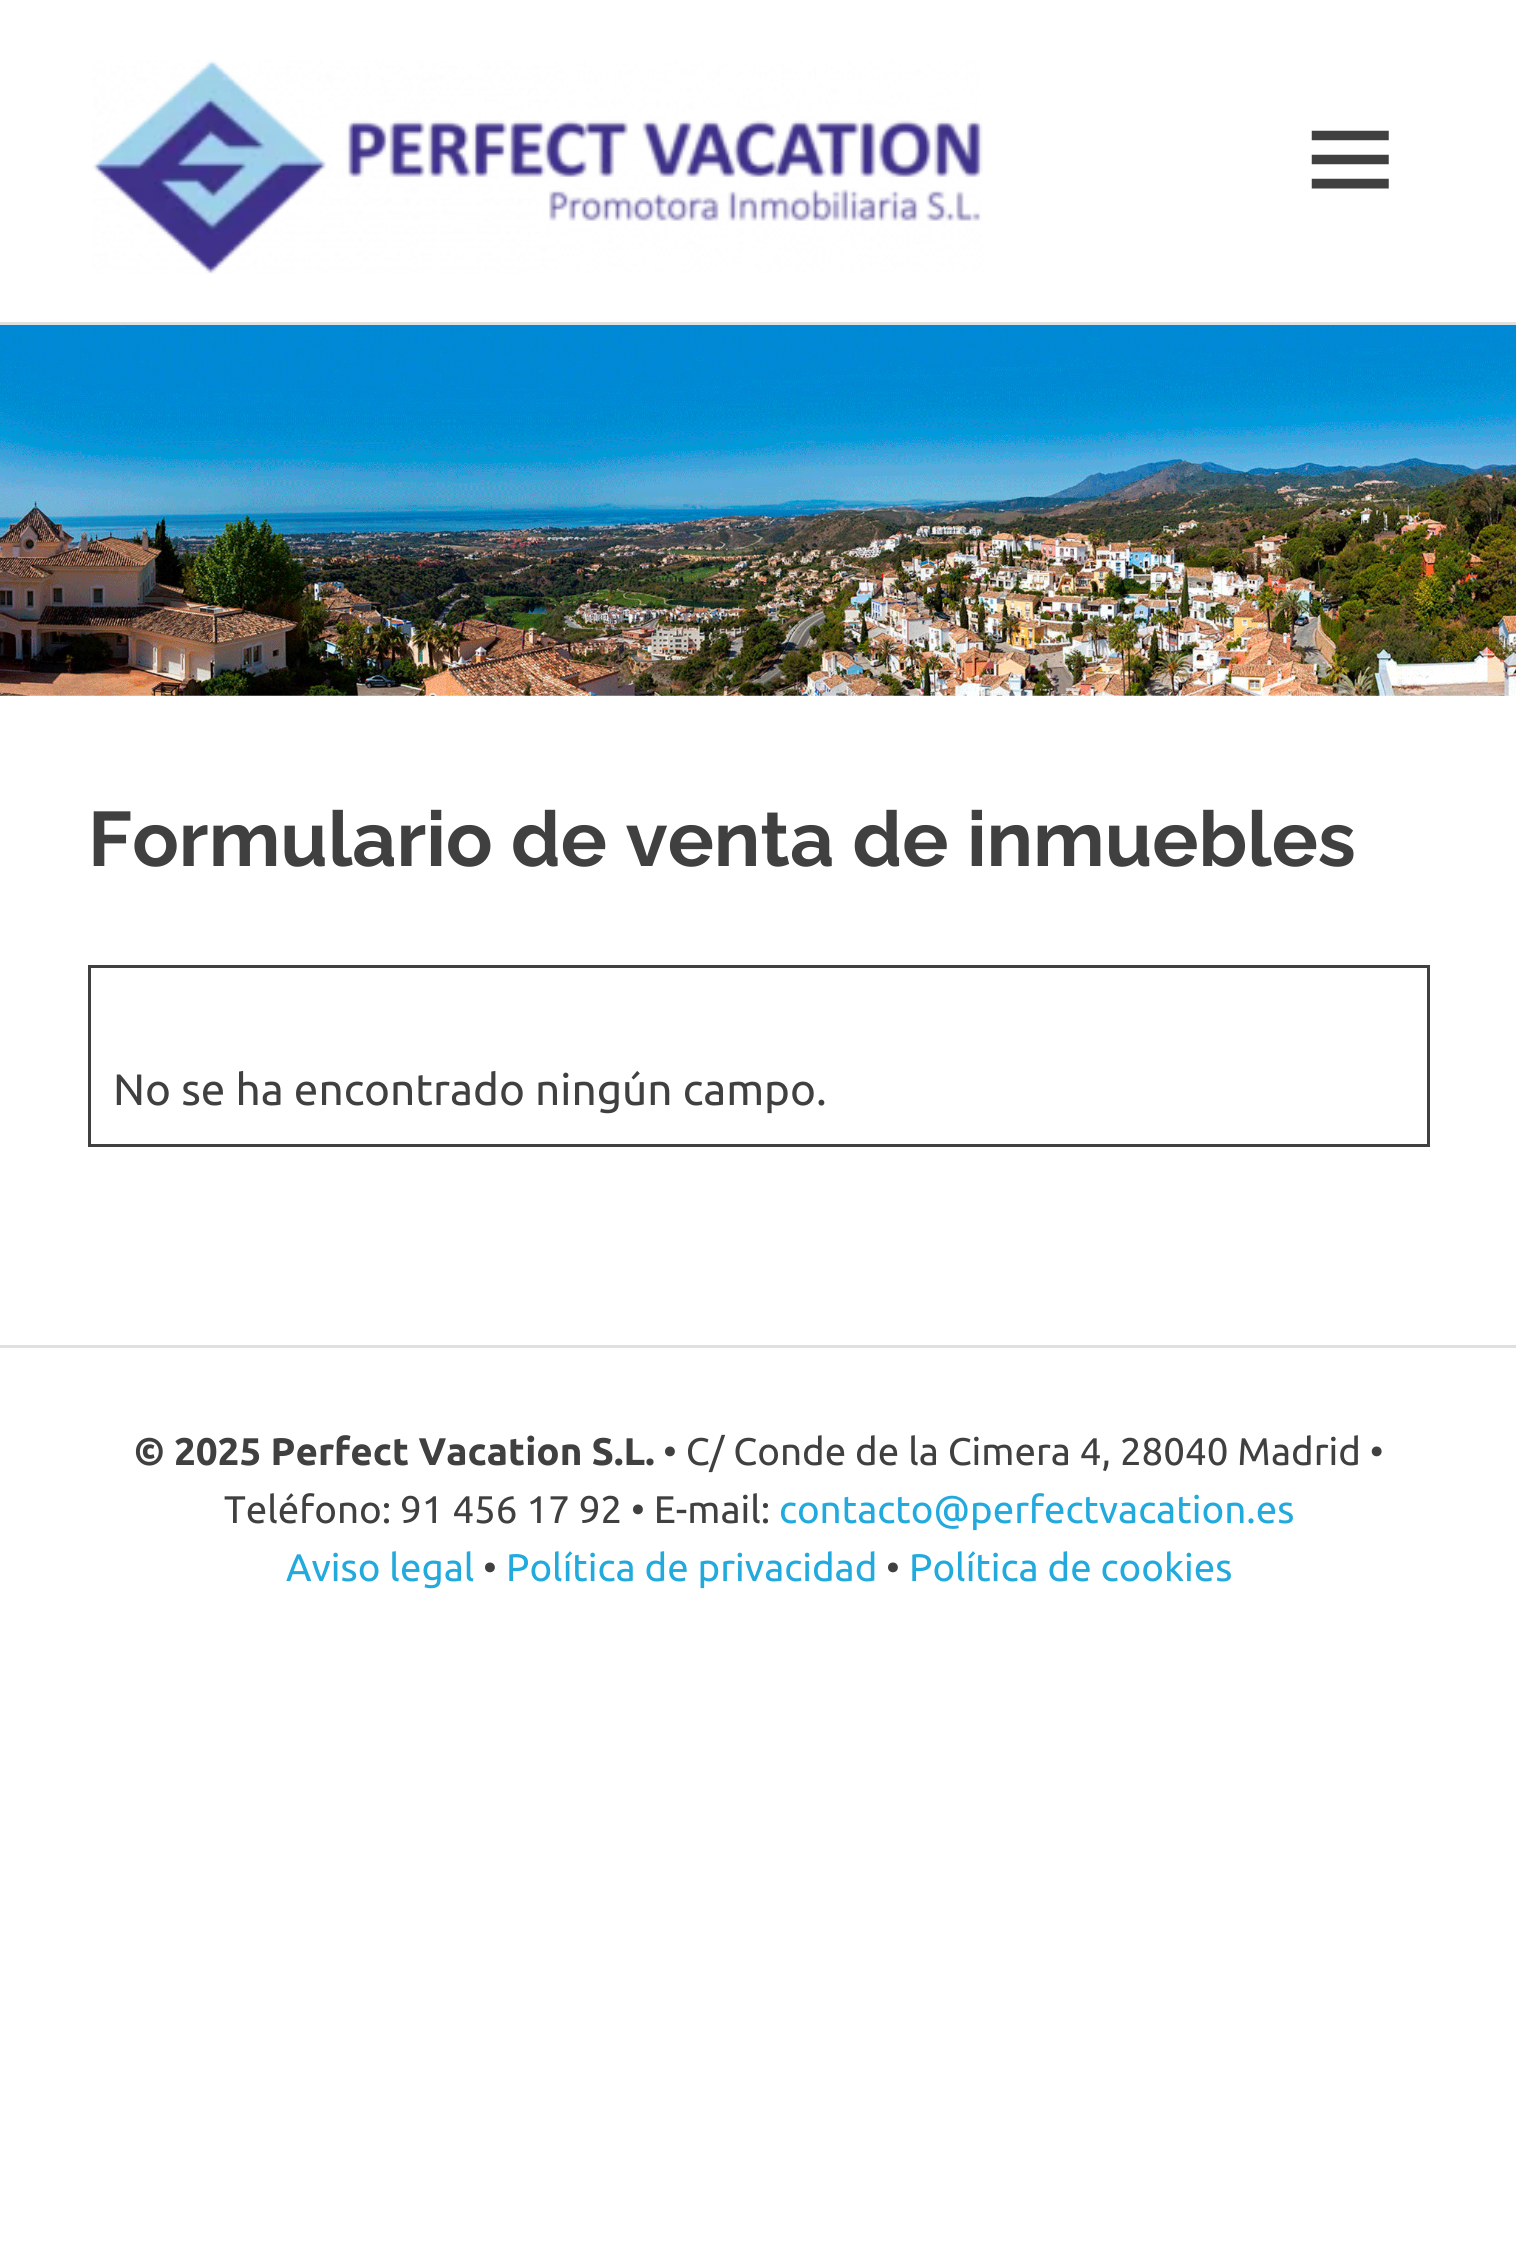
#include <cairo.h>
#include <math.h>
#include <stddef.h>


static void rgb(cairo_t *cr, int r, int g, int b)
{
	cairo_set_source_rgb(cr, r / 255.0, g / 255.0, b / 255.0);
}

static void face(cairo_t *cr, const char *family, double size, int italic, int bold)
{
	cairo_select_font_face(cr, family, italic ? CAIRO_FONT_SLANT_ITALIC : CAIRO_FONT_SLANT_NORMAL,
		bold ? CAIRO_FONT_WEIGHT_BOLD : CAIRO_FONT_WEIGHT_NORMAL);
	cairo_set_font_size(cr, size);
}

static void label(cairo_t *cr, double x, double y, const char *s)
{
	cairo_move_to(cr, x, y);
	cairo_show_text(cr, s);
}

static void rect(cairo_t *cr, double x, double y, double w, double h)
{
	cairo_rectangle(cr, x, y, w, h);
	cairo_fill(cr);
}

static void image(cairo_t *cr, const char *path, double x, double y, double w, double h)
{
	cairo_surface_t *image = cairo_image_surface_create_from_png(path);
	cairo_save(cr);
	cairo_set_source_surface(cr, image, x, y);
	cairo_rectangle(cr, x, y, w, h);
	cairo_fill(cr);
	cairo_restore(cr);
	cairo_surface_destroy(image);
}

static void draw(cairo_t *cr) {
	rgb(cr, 255, 255, 255);
	cairo_paint(cr);
	rgb(cr, 224, 224, 224);
	rect(cr, 0, 322, 1516, 3);
	image(cr, "image0.png", 92, 60, 891, 214);
	image(cr, "image1.png", 1311, 130, 78, 59);
	image(cr, "image2.png", 0, 325, 1516, 371);
	face(cr, "Raleway", 77, 0, 1);
	rgb(cr, 64, 64, 64);
	label(cr, 88, 866, "Formulario de venta de inmuebles");
	rect(cr, 88, 965, 1342, 3);
	rect(cr, 1427, 965, 3, 182);
	rect(cr, 88, 1144, 1342, 3);
	rect(cr, 88, 965, 3, 182);
	face(cr, "Ubuntu", 44, 0, 0);
	label(cr, 113, 1105, "No se ha encontrado ningún campo.");
	rgb(cr, 224, 224, 224);
	rect(cr, 0, 1345, 1516, 3);
	face(cr, "Ubuntu", 38.5, 0, 1);
	rgb(cr, 64, 64, 64);
	label(cr, 134, 1465, "© 2025 Perfect Vacation S.L.");
	face(cr, "Ubuntu", 38.5, 0, 0);
	label(cr, 663, 1465, "• C/ Conde de la Cimera 4, 28040 Madrid •");
	label(cr, 224, 1523, "Teléfono: 91 456 17 92 • E-mail:");
	rgb(cr, 34, 170, 221);
	label(cr, 779, 1523, "contacto@perfectvacation.es");
	label(cr, 286, 1581, "Aviso legal");
	rgb(cr, 64, 64, 64);
	label(cr, 483, 1581, "•");
	rgb(cr, 34, 170, 221);
	label(cr, 506, 1581, "Política de privacidad");
	rgb(cr, 64, 64, 64);
	label(cr, 886, 1581, "•");
	rgb(cr, 34, 170, 221);
	label(cr, 909, 1581, "Política de cookies");
}

int main(void) {
	cairo_surface_t *surface = cairo_image_surface_create(CAIRO_FORMAT_RGB24, 1516, 2264);
	cairo_t *cr = cairo_create(surface);
	cairo_font_options_t *options = cairo_font_options_create();
	cairo_font_options_set_hint_metrics(options, CAIRO_HINT_METRICS_OFF);
	cairo_font_options_set_hint_style(options, CAIRO_HINT_STYLE_NONE);
	cairo_set_font_options(cr, options);
	cairo_set_miter_limit(cr, 4);
	draw(cr);
	cairo_surface_write_to_png(surface, "render.png");
	cairo_font_options_destroy(options);
	cairo_destroy(cr);
	cairo_surface_destroy(surface);
	return 0;
}
